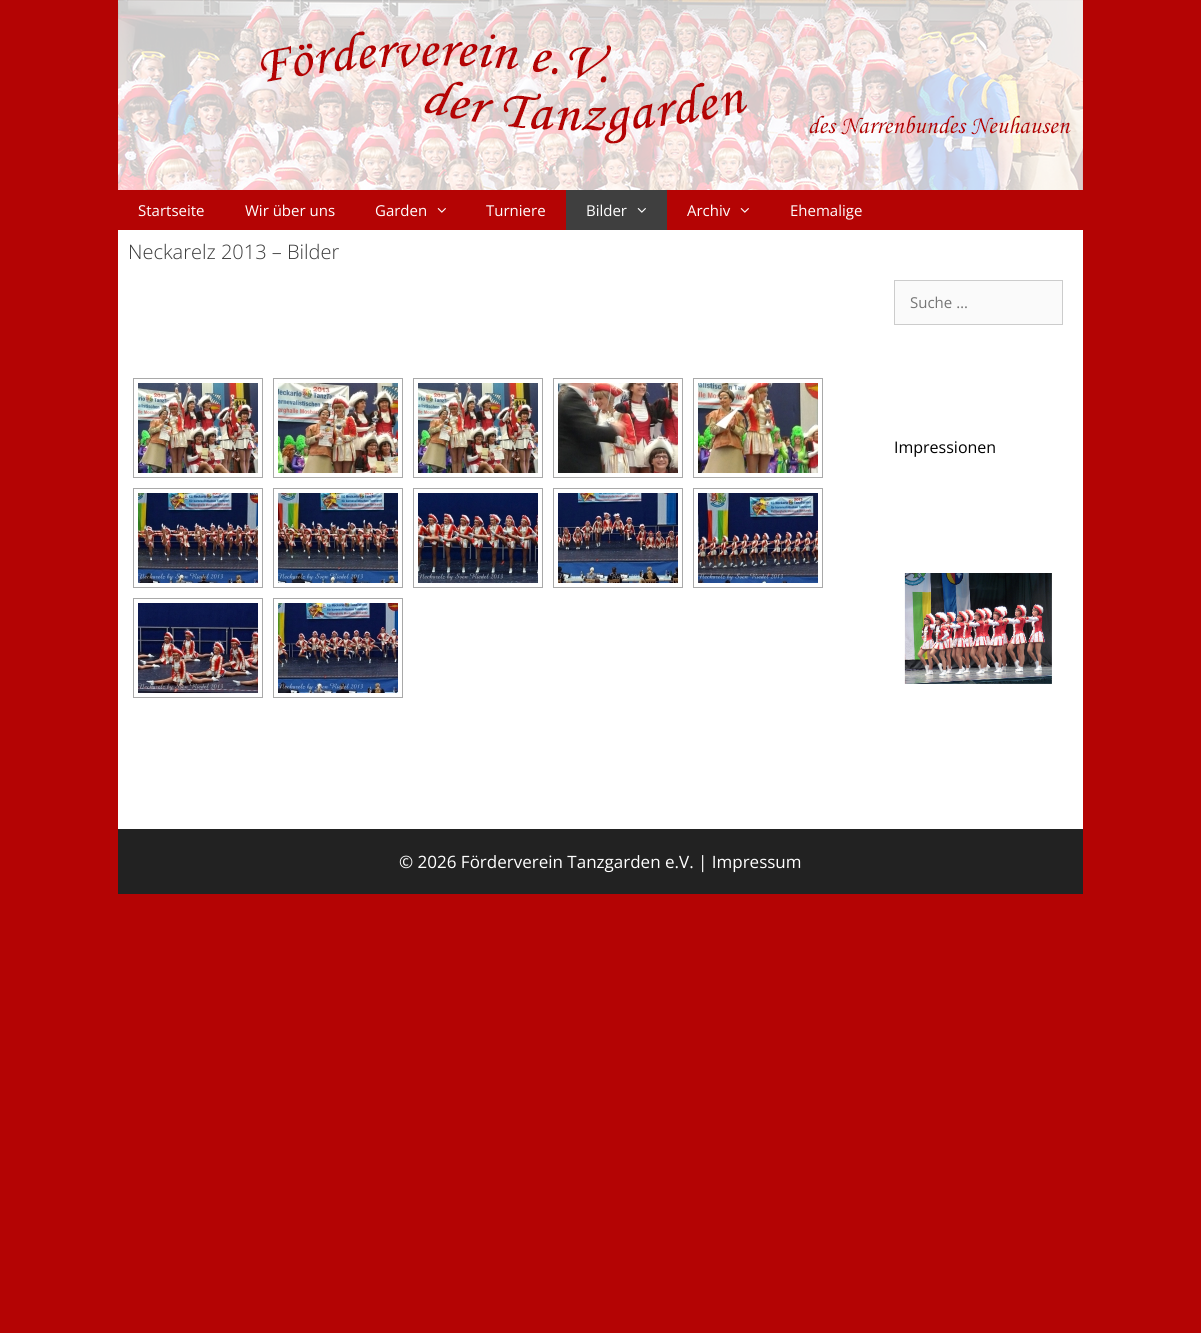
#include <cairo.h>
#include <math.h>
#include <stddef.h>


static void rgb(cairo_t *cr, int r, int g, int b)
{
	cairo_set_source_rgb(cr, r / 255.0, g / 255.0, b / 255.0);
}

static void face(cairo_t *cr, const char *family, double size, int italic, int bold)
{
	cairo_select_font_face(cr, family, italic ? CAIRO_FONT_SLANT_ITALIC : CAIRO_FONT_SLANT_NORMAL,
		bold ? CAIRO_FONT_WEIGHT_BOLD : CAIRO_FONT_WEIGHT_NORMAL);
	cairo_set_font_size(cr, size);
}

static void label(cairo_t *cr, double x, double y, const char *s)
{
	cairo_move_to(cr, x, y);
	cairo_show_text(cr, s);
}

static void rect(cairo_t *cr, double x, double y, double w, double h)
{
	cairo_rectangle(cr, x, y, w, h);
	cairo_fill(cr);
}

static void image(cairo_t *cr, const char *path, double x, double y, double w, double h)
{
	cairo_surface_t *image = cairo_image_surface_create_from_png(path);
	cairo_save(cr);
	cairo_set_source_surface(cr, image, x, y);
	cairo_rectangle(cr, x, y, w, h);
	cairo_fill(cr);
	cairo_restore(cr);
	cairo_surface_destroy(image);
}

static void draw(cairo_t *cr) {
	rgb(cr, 180, 4, 4);
	cairo_paint(cr);
	image(cr, "image0.png", 118, 0, 965, 190);
	face(cr, "Open Sans", 15, 0, 0);
	rgb(cr, 255, 255, 255);
	label(cr, 138, 216, "Startseite");
	label(cr, 245, 216, "Wir über uns");
	label(cr, 375, 216, "Garden");
	image(cr, "image1.png", 437, 208, 9, 5);
	label(cr, 486, 216, "Turniere");
	rgb(cr, 63, 63, 63);
	rect(cr, 566, 190, 101, 40);
	rgb(cr, 255, 255, 255);
	label(cr, 586, 216, "Bilder");
	image(cr, "image2.png", 637, 208, 9, 5);
	label(cr, 687, 216, "Archiv");
	image(cr, "image1.png", 740, 208, 9, 5);
	label(cr, 790, 216, "Ehemalige");
	rect(cr, 118, 230, 965, 599);
	face(cr, "Open Sans Light", 20, 0, 0);
	rgb(cr, 58, 58, 58);
	label(cr, 128, 259, "Neckarelz 2013 – Bilder");
	cairo_rectangle(cr, 133.5, 378.5, 129, 99);
	rgb(cr, 169, 169, 169);
	cairo_set_line_width(cr, 1);
	cairo_stroke(cr);
	image(cr, "image3.png", 138, 383, 120, 90);
	cairo_rectangle(cr, 273.5, 378.5, 129, 99);
	cairo_stroke(cr);
	image(cr, "image4.png", 278, 383, 120, 90);
	cairo_rectangle(cr, 413.5, 378.5, 129, 99);
	cairo_stroke(cr);
	image(cr, "image5.png", 418, 383, 120, 90);
	cairo_rectangle(cr, 553.5, 378.5, 129, 99);
	cairo_stroke(cr);
	image(cr, "image6.png", 558, 383, 120, 90);
	cairo_rectangle(cr, 693.5, 378.5, 129, 99);
	cairo_stroke(cr);
	image(cr, "image7.png", 698, 383, 120, 90);
	cairo_rectangle(cr, 133.5, 488.5, 129, 99);
	cairo_stroke(cr);
	image(cr, "image8.png", 138, 493, 120, 90);
	cairo_rectangle(cr, 273.5, 488.5, 129, 99);
	cairo_stroke(cr);
	image(cr, "image9.png", 278, 493, 120, 90);
	cairo_rectangle(cr, 413.5, 488.5, 129, 99);
	cairo_stroke(cr);
	image(cr, "image10.png", 418, 493, 120, 90);
	cairo_rectangle(cr, 553.5, 488.5, 129, 99);
	cairo_stroke(cr);
	image(cr, "image11.png", 558, 493, 120, 90);
	cairo_rectangle(cr, 693.5, 488.5, 129, 99);
	cairo_stroke(cr);
	image(cr, "image12.png", 698, 493, 120, 90);
	cairo_rectangle(cr, 133.5, 598.5, 129, 99);
	cairo_stroke(cr);
	image(cr, "image13.png", 138, 603, 120, 90);
	cairo_rectangle(cr, 273.5, 598.5, 129, 99);
	cairo_stroke(cr);
	image(cr, "image14.png", 278, 603, 120, 90);
	rgb(cr, 250, 250, 250);
	cairo_rectangle(cr, 894.5, 280.5, 168, 44);
	cairo_fill_preserve(cr);
	rgb(cr, 204, 204, 204);
	cairo_stroke(cr);
	face(cr, "Open Sans", 15, 0, 0);
	rgb(cr, 117, 117, 117);
	label(cr, 910, 308, "Suche …");
	face(cr, "Open Sans", 16, 0, 0);
	rgb(cr, 0, 0, 0);
	label(cr, 894, 453, "Impressionen");
	image(cr, "image15.png", 904, 573, 148, 111);
	rgb(cr, 34, 34, 34);
	rect(cr, 118, 829, 965, 65);
	face(cr, "Open Sans", 17, 0, 0);
	rgb(cr, 255, 255, 255);
	label(cr, 399, 868, "© 2026 Förderverein Tanzgarden e.V. | Impressum");
}

int main(void) {
	cairo_surface_t *surface = cairo_image_surface_create(CAIRO_FORMAT_RGB24, 1201, 1333);
	cairo_t *cr = cairo_create(surface);
	cairo_font_options_t *options = cairo_font_options_create();
	cairo_font_options_set_hint_metrics(options, CAIRO_HINT_METRICS_OFF);
	cairo_font_options_set_hint_style(options, CAIRO_HINT_STYLE_NONE);
	cairo_set_font_options(cr, options);
	cairo_set_miter_limit(cr, 4);
	draw(cr);
	cairo_surface_write_to_png(surface, "render.png");
	cairo_font_options_destroy(options);
	cairo_destroy(cr);
	cairo_surface_destroy(surface);
	return 0;
}
